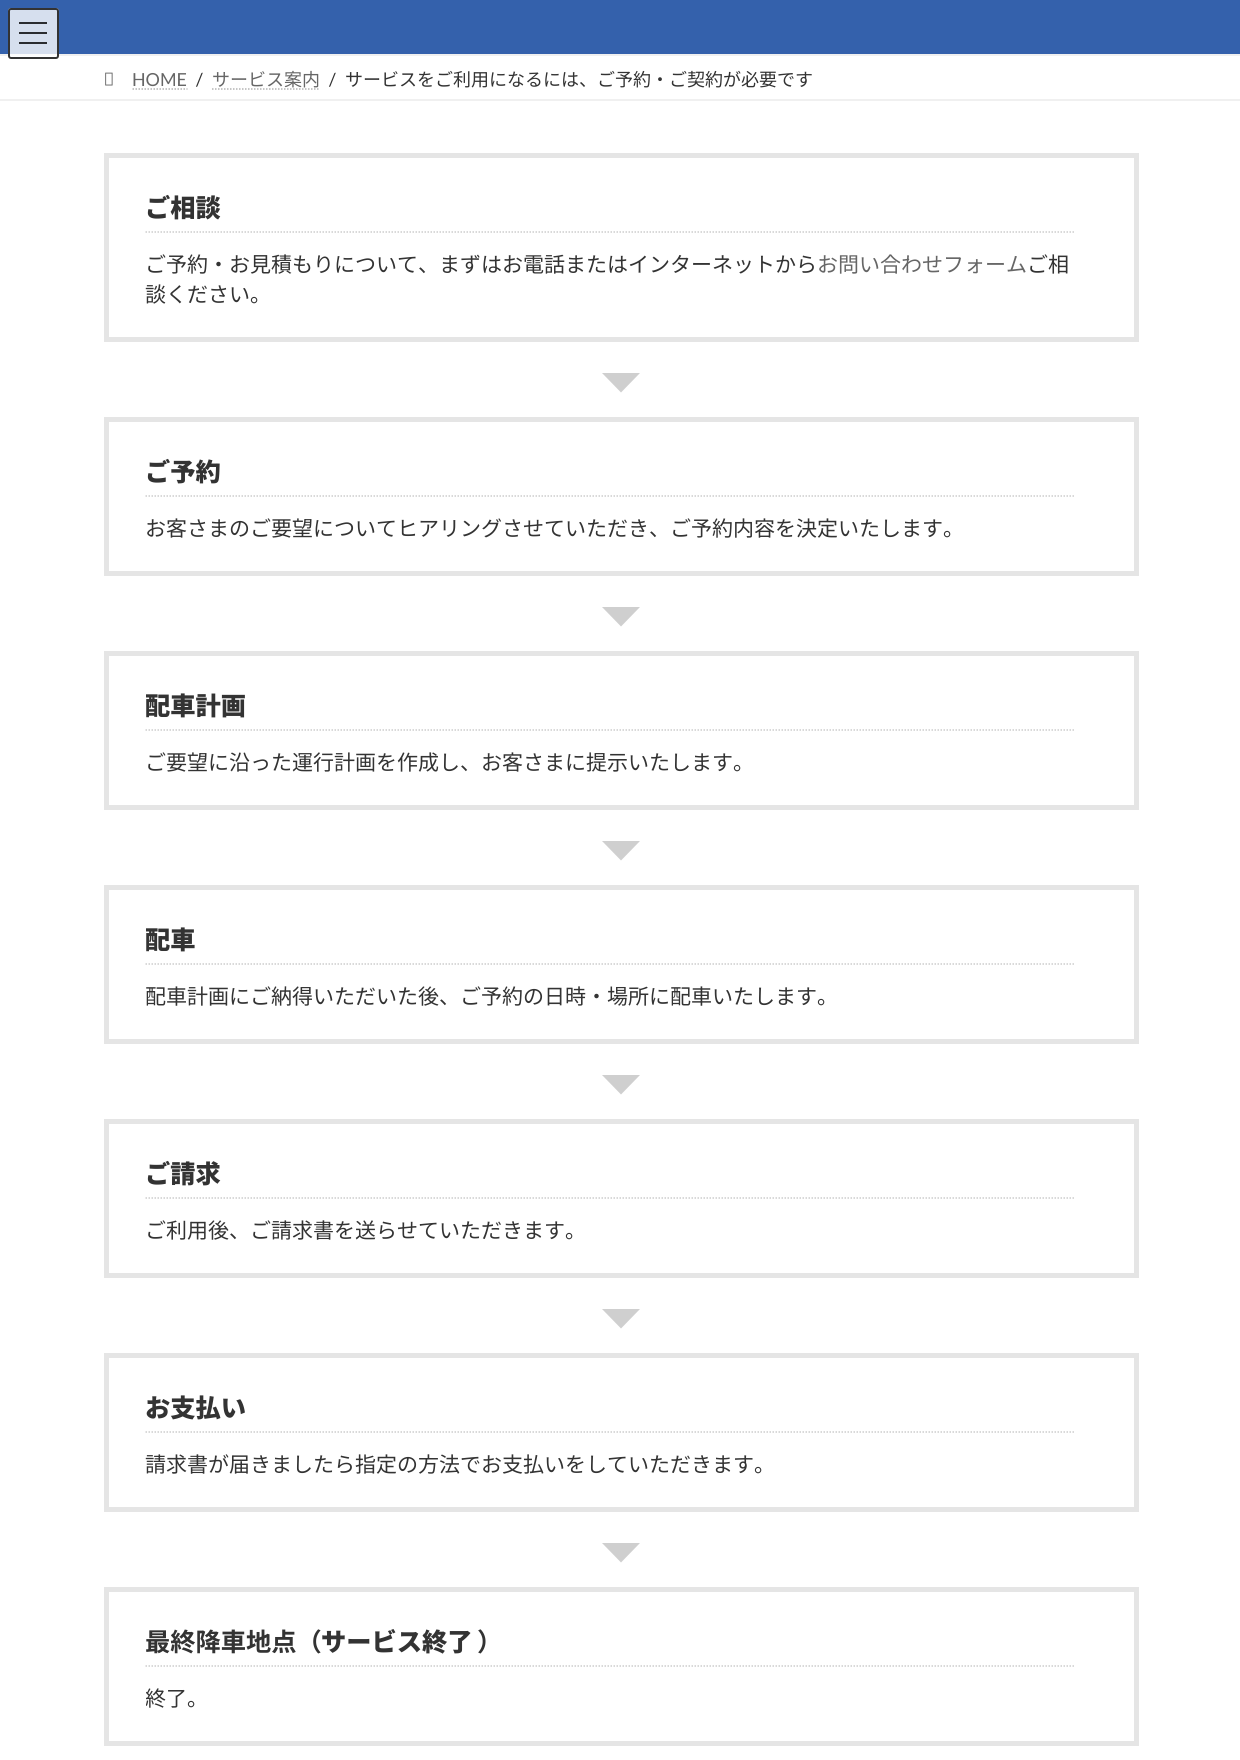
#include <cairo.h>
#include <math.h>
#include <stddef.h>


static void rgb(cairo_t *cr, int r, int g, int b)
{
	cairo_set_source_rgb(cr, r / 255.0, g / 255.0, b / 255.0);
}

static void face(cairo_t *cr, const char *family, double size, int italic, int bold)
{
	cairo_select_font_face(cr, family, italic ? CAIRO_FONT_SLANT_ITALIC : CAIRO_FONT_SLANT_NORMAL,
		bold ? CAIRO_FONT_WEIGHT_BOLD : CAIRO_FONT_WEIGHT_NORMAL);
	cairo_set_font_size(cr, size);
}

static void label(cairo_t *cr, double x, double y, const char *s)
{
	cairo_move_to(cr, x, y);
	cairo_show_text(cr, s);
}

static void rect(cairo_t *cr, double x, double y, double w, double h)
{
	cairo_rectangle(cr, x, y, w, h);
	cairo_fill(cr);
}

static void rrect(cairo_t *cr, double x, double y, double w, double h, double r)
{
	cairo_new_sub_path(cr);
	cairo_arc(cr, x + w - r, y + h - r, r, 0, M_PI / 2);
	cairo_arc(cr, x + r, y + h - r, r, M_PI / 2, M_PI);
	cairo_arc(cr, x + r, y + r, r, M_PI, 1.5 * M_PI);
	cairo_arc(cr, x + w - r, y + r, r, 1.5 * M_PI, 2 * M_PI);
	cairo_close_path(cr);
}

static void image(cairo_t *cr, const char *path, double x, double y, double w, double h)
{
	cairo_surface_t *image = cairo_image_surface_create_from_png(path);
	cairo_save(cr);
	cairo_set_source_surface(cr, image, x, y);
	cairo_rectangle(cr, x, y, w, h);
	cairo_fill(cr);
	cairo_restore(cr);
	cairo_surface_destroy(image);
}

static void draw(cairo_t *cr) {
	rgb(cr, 255, 255, 255);
	cairo_paint(cr);
	rgb(cr, 52, 97, 172);
	rect(cr, 0, 0, 1240, 54);
	rgb(cr, 240, 240, 240);
	rect(cr, 0, 54, 1240, 2);
	cairo_set_source_rgba(cr, 1, 1, 1, 0.8);
	rrect(cr, 8, 8, 51, 51, 3);
	cairo_fill(cr);
	rgb(cr, 43, 45, 48);
	rect(cr, 19, 22, 28, 2);
	rect(cr, 19, 32, 28, 2);
	rect(cr, 19, 42, 28, 2);
	rrect(cr, 9, 9, 49, 49, 2);
	rgb(cr, 51, 51, 51);
	cairo_stroke(cr);
	rgb(cr, 240, 240, 240);
	rect(cr, 0, 99, 1240, 2);
	image(cr, "image0.png", 105, 72, 8, 14);
	face(cr, "Lato", 18, 0, 0);
	rgb(cr, 102, 102, 102);
	label(cr, 132, 86, "HOME");
	cairo_new_path(cr);
	cairo_move_to(cr, 132.5, 89);
	cairo_line_to(cr, 187.5, 89);
	rgb(cr, 179, 179, 179);
	cairo_set_line_width(cr, 1.5);
	cairo_set_dash(cr, (double[]){1.5, 1.5}, 2, 0);
	cairo_stroke(cr);
	rgb(cr, 51, 51, 51);
	label(cr, 196, 86, "/");
	face(cr, "Noto Sans JP", 18, 0, 0);
	rgb(cr, 102, 102, 102);
	label(cr, 212, 86, "サービス案内");
	cairo_new_path(cr);
	cairo_move_to(cr, 212, 89);
	cairo_line_to(cr, 320, 89);
	rgb(cr, 179, 179, 179);
	cairo_stroke(cr);
	face(cr, "Lato", 18, 0, 0);
	rgb(cr, 51, 51, 51);
	label(cr, 329, 86, "/");
	face(cr, "Noto Sans JP", 18, 0, 0);
	label(cr, 345, 86, "サービスをご利用になるには、ご予約・ご契約が必要です");
	cairo_rectangle(cr, 106.5, 155.5, 1030, 184);
	rgb(cr, 229, 229, 229);
	cairo_set_line_width(cr, 5);
	cairo_set_dash(cr, NULL, 0, 0);
	cairo_stroke(cr);
	cairo_new_path(cr);
	cairo_move_to(cr, 145.5, 232);
	cairo_line_to(cr, 1074, 232);
	rgb(cr, 204, 204, 204);
	cairo_set_line_width(cr, 1.5);
	cairo_set_dash(cr, (double[]){1.5, 1.5}, 2, 0);
	cairo_stroke(cr);
	face(cr, "Noto Sans JP Black", 25.25, 0, 0);
	rgb(cr, 51, 51, 51);
	label(cr, 145, 217, "ご相談");
	face(cr, "Noto Sans JP", 21, 0, 0);
	label(cr, 145, 272, "ご予約・お見積もりについて、まずはお電話またはインターネットから");
	rgb(cr, 102, 102, 102);
	label(cr, 817, 272, "お問い合わせフォーム");
	rgb(cr, 51, 51, 51);
	label(cr, 1027, 272, "ご相");
	label(cr, 145, 302, "談ください。");
	rgb(cr, 207, 207, 207);
	cairo_new_path(cr);
	cairo_move_to(cr, 602, 373);
	cairo_line_to(cr, 621, 392.5);
	cairo_line_to(cr, 640, 373);
	cairo_close_path(cr);
	cairo_fill(cr);
	cairo_rectangle(cr, 106.5, 419.5, 1030, 154);
	rgb(cr, 229, 229, 229);
	cairo_set_line_width(cr, 5);
	cairo_set_dash(cr, NULL, 0, 0);
	cairo_stroke(cr);
	cairo_new_path(cr);
	cairo_move_to(cr, 145.5, 496);
	cairo_line_to(cr, 1074, 496);
	rgb(cr, 204, 204, 204);
	cairo_set_line_width(cr, 1.5);
	cairo_set_dash(cr, (double[]){1.5, 1.5}, 2, 0);
	cairo_stroke(cr);
	face(cr, "Noto Sans JP Black", 25.25, 0, 0);
	rgb(cr, 51, 51, 51);
	label(cr, 145, 481, "ご予約");
	face(cr, "Noto Sans JP", 21, 0, 0);
	label(cr, 145, 536, "お客さまのご要望についてヒアリングさせていただき、ご予約内容を決定いたします。");
	rgb(cr, 207, 207, 207);
	cairo_new_path(cr);
	cairo_move_to(cr, 602, 607);
	cairo_line_to(cr, 621, 626.5);
	cairo_line_to(cr, 640, 607);
	cairo_close_path(cr);
	cairo_fill(cr);
	cairo_rectangle(cr, 106.5, 653.5, 1030, 154);
	rgb(cr, 229, 229, 229);
	cairo_set_line_width(cr, 5);
	cairo_set_dash(cr, NULL, 0, 0);
	cairo_stroke(cr);
	cairo_new_path(cr);
	cairo_move_to(cr, 145.5, 730);
	cairo_line_to(cr, 1074, 730);
	rgb(cr, 204, 204, 204);
	cairo_set_line_width(cr, 1.5);
	cairo_set_dash(cr, (double[]){1.5, 1.5}, 2, 0);
	cairo_stroke(cr);
	cairo_save(cr);
	cairo_rectangle(cr, 146, 686, 928, 90);
	cairo_clip(cr);
	face(cr, "Noto Sans JP Black", 25.25, 0, 0);
	rgb(cr, 51, 51, 51);
	label(cr, 145, 715, "配車計画");
	cairo_restore(cr);
	rgb(cr, 51, 51, 51);
	label(cr, 145, 770, "ご要望に沿った運行計画を作成し、お客さまに提示いたします。");
	rgb(cr, 207, 207, 207);
	cairo_new_path(cr);
	cairo_move_to(cr, 602, 841);
	cairo_line_to(cr, 621, 860.5);
	cairo_line_to(cr, 640, 841);
	cairo_close_path(cr);
	cairo_fill(cr);
	cairo_rectangle(cr, 106.5, 887.5, 1030, 154);
	rgb(cr, 229, 229, 229);
	cairo_set_line_width(cr, 5);
	cairo_set_dash(cr, NULL, 0, 0);
	cairo_stroke(cr);
	cairo_new_path(cr);
	cairo_move_to(cr, 145.5, 964);
	cairo_line_to(cr, 1074, 964);
	rgb(cr, 204, 204, 204);
	cairo_set_line_width(cr, 1.5);
	cairo_set_dash(cr, (double[]){1.5, 1.5}, 2, 0);
	cairo_stroke(cr);
	cairo_save(cr);
	cairo_rectangle(cr, 146, 920, 928, 90);
	cairo_clip(cr);
	face(cr, "Noto Sans JP Black", 25.25, 0, 0);
	rgb(cr, 51, 51, 51);
	label(cr, 145, 949, "配車");
	cairo_restore(cr);
	rgb(cr, 51, 51, 51);
	label(cr, 145, 1004, "配車計画にご納得いただいた後、ご予約の日時・場所に配車いたします。");
	rgb(cr, 207, 207, 207);
	cairo_new_path(cr);
	cairo_move_to(cr, 602, 1075);
	cairo_line_to(cr, 621, 1094.5);
	cairo_line_to(cr, 640, 1075);
	cairo_close_path(cr);
	cairo_fill(cr);
	cairo_rectangle(cr, 106.5, 1121.5, 1030, 154);
	rgb(cr, 229, 229, 229);
	cairo_set_line_width(cr, 5);
	cairo_set_dash(cr, NULL, 0, 0);
	cairo_stroke(cr);
	cairo_new_path(cr);
	cairo_move_to(cr, 145.5, 1198);
	cairo_line_to(cr, 1074, 1198);
	rgb(cr, 204, 204, 204);
	cairo_set_line_width(cr, 1.5);
	cairo_set_dash(cr, (double[]){1.5, 1.5}, 2, 0);
	cairo_stroke(cr);
	face(cr, "Noto Sans JP Black", 25.25, 0, 0);
	rgb(cr, 51, 51, 51);
	label(cr, 145, 1183, "ご請求");
	face(cr, "Noto Sans JP", 21, 0, 0);
	label(cr, 145, 1238, "ご利用後、ご請求書を送らせていただきます。");
	rgb(cr, 207, 207, 207);
	cairo_new_path(cr);
	cairo_move_to(cr, 602, 1309);
	cairo_line_to(cr, 621, 1328.5);
	cairo_line_to(cr, 640, 1309);
	cairo_close_path(cr);
	cairo_fill(cr);
	cairo_rectangle(cr, 106.5, 1355.5, 1030, 154);
	rgb(cr, 229, 229, 229);
	cairo_set_line_width(cr, 5);
	cairo_set_dash(cr, NULL, 0, 0);
	cairo_stroke(cr);
	cairo_new_path(cr);
	cairo_move_to(cr, 145.5, 1432);
	cairo_line_to(cr, 1074, 1432);
	rgb(cr, 204, 204, 204);
	cairo_set_line_width(cr, 1.5);
	cairo_set_dash(cr, (double[]){1.5, 1.5}, 2, 0);
	cairo_stroke(cr);
	face(cr, "Noto Sans JP Black", 25.25, 0, 0);
	rgb(cr, 51, 51, 51);
	label(cr, 145, 1417, "お支払い");
	face(cr, "Noto Sans JP", 21, 0, 0);
	label(cr, 145, 1472, "請求書が届きましたら指定の方法でお支払いをしていただきます。");
	rgb(cr, 207, 207, 207);
	cairo_new_path(cr);
	cairo_move_to(cr, 602, 1543);
	cairo_line_to(cr, 621, 1562.5);
	cairo_line_to(cr, 640, 1543);
	cairo_close_path(cr);
	cairo_fill(cr);
	cairo_rectangle(cr, 106.5, 1589.5, 1030, 154);
	rgb(cr, 229, 229, 229);
	cairo_set_line_width(cr, 5);
	cairo_set_dash(cr, NULL, 0, 0);
	cairo_stroke(cr);
	cairo_new_path(cr);
	cairo_move_to(cr, 145.5, 1666);
	cairo_line_to(cr, 1074, 1666);
	rgb(cr, 204, 204, 204);
	cairo_set_line_width(cr, 1.5);
	cairo_set_dash(cr, (double[]){1.5, 1.5}, 2, 0);
	cairo_stroke(cr);
	face(cr, "Noto Sans JP", 25.25, 0, 1);
	rgb(cr, 51, 51, 51);
	label(cr, 145, 1651, "最終降車地点（");
	face(cr, "Noto Sans JP Black", 25.25, 0, 0);
	label(cr, 321, 1651, "サービス終了");
	face(cr, "Noto Sans JP", 25.25, 0, 1);
	label(cr, 477, 1651, "）");
	cairo_save(cr);
	cairo_rectangle(cr, 146, 1622, 928, 90);
	cairo_clip(cr);
	face(cr, "Noto Sans JP", 21, 0, 0);
	label(cr, 145, 1706, "終了。");
	cairo_restore(cr);
}

int main(void) {
	cairo_surface_t *surface = cairo_image_surface_create(CAIRO_FORMAT_RGB24, 1240, 1760);
	cairo_t *cr = cairo_create(surface);
	cairo_font_options_t *options = cairo_font_options_create();
	cairo_font_options_set_hint_metrics(options, CAIRO_HINT_METRICS_OFF);
	cairo_font_options_set_hint_style(options, CAIRO_HINT_STYLE_NONE);
	cairo_set_font_options(cr, options);
	cairo_set_miter_limit(cr, 4);
	draw(cr);
	cairo_surface_write_to_png(surface, "render.png");
	cairo_font_options_destroy(options);
	cairo_destroy(cr);
	cairo_surface_destroy(surface);
	return 0;
}
